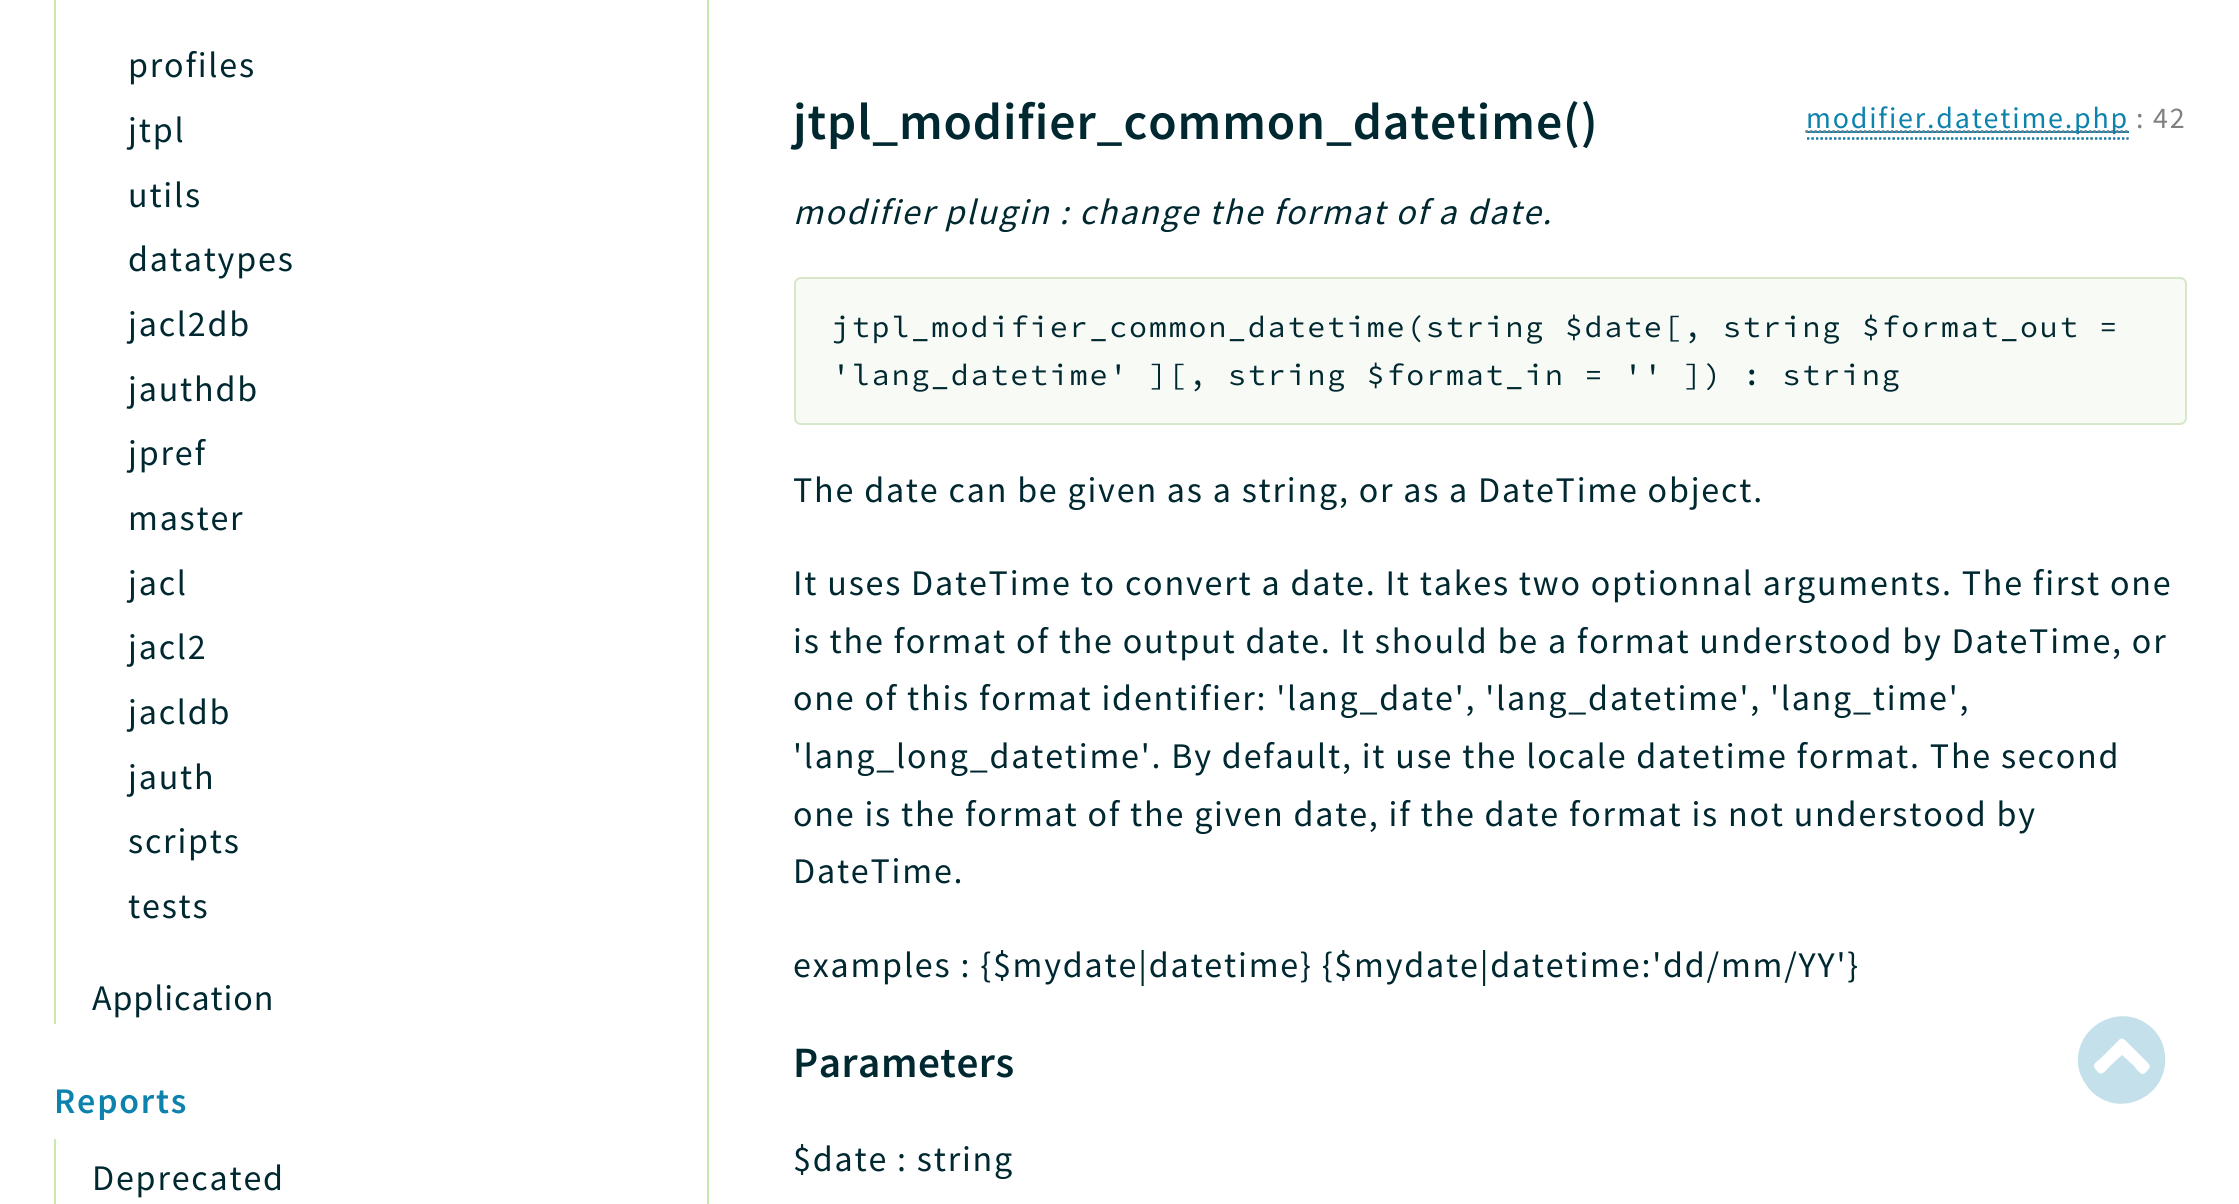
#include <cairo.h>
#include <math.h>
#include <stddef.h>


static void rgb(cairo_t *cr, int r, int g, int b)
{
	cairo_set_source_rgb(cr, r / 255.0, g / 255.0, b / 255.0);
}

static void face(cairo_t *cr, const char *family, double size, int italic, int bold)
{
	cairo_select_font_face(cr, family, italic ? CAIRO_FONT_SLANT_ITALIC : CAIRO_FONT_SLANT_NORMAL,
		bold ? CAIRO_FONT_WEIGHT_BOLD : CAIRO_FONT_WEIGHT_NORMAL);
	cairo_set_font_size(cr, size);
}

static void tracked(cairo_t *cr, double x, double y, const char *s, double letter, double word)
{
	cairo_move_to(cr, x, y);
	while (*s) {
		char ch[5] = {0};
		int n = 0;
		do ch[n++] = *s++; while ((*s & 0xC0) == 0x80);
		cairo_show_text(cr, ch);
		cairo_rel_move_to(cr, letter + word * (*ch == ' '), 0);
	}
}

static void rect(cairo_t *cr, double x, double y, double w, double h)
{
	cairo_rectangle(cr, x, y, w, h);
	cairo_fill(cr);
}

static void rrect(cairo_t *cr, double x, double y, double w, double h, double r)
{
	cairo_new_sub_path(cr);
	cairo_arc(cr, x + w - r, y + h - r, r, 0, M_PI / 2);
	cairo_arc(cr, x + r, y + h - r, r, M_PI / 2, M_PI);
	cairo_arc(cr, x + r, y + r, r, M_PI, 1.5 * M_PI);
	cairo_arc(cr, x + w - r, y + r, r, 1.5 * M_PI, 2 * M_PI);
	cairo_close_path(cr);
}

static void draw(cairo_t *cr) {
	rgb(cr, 255, 255, 255);
	cairo_paint(cr);
	rgb(cr, 198, 233, 175);
	rect(cr, 707, 0, 2, 1204);
	rect(cr, 54, 0, 2, 1024);
	face(cr, "Source Sans Pro", 36, 0, 0);
	rgb(cr, 0, 40, 48);
	tracked(cr, 128, 77, "profiles", 1.8, 0);
	tracked(cr, 128, 142, "jtpl", 1.8, 0);
	tracked(cr, 128, 207, "utils", 1.8, 0);
	tracked(cr, 128, 271, "datatypes", 1.8, 0);
	tracked(cr, 128, 336, "jacl2db", 1.8, 0);
	tracked(cr, 128, 401, "jauthdb", 1.8, 0);
	tracked(cr, 128, 465, "jpref", 1.8, 0);
	tracked(cr, 128, 530, "master", 1.8, 0);
	tracked(cr, 128, 595, "jacl", 1.8, 0);
	tracked(cr, 128, 659, "jacl2", 1.8, 0);
	tracked(cr, 128, 724, "jacldb", 1.8, 0);
	tracked(cr, 128, 789, "jauth", 1.8, 0);
	tracked(cr, 128, 853, "scripts", 1.8, 0);
	tracked(cr, 128, 918, "tests", 1.8, 0);
	tracked(cr, 92, 1010, "Application", 0.9, 0);
	face(cr, "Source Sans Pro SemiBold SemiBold", 36, 0, 0);
	rgb(cr, 13, 130, 173);
	tracked(cr, 54, 1113, "Reports", 1.8, 0);
	rgb(cr, 198, 233, 175);
	rect(cr, 54, 1139, 2, 65);
	face(cr, "Source Sans Pro", 36, 0, 0);
	rgb(cr, 0, 40, 48);
	tracked(cr, 92, 1190, "Deprecated", 1.8, 0);
	face(cr, "Source Sans Pro SemiBold SemiBold", 51.8, 0, 0);
	tracked(cr, 793, 139, "jtpl_modifier_common_datetime()", 0.9, 0);
	cairo_new_path(cr);
	cairo_move_to(cr, 1805.5, 131.5);
	cairo_line_to(cr, 2128.5, 131.5);
	rgb(cr, 13, 130, 173);
	cairo_set_line_width(cr, 2.2);
	cairo_set_dash(cr, (double[]){2.25, 2.25}, 2, 0);
	cairo_stroke(cr);
	rect(cr, 1807, 131, 322, 2);
	cairo_new_path(cr);
	cairo_move_to(cr, 1805.5, 131.5);
	cairo_line_to(cr, 2128.5, 131.5);
	rgb(cr, 128, 128, 128);
	cairo_stroke(cr);
	face(cr, "Source Sans Pro", 30, 0, 0);
	rgb(cr, 13, 130, 173);
	tracked(cr, 1806, 128, "modifier.datetime.php", 1.8, 0);
	cairo_new_path(cr);
	cairo_move_to(cr, 1807, 138.5);
	cairo_line_to(cr, 2128.5, 138.5);
	rgb(cr, 128, 128, 128);
	cairo_stroke(cr);
	cairo_new_path(cr);
	cairo_move_to(cr, 1807, 138.5);
	cairo_line_to(cr, 2128.5, 138.5);
	rgb(cr, 13, 130, 173);
	cairo_stroke(cr);
	rgb(cr, 128, 128, 128);
	tracked(cr, 2136, 128, ": 42", 1.8, 0);
	face(cr, "Source Sans Pro", 36, 1, 0);
	rgb(cr, 0, 40, 48);
	tracked(cr, 793, 224, "modifier plugin : change the format of a date.", 1.8, 0);
	rgb(cr, 247, 250, 245);
	rrect(cr, 795, 278, 1391, 146, 6);
	cairo_fill_preserve(cr);
	rgb(cr, 214, 231, 203);
	cairo_set_line_width(cr, 2);
	cairo_set_dash(cr, NULL, 0, 0);
	cairo_stroke(cr);
	face(cr, "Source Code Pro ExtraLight", 30, 0, 0);
	rgb(cr, 0, 40, 48);
	tracked(cr, 832, 337, "jtpl_modifier_common_datetime(string $date[, string $format_out =", 1.8, 0);
	tracked(cr, 832, 385, "'lang_datetime' ][, string $format_in = '' ]) : string", 1.8, 0);
	face(cr, "Source Sans Pro", 36, 0, 0);
	tracked(cr, 793, 502, "The date can be given as a string, or as a DateTime object.", 1.8, 0);
	tracked(cr, 793, 595, "It uses DateTime to convert a date. It takes two optionnal arguments. The first one", 1.8, 0);
	tracked(cr, 793, 653, "is the format of the output date. It should be a format understood by DateTime, or", 1.8, 0);
	tracked(cr, 793, 710, "one of this format identifier: 'lang_date', 'lang_datetime', 'lang_time',", 1.8, 0);
	tracked(cr, 793, 768, "'lang_long_datetime'. By default, it use the locale datetime format. The second", 1.8, 0);
	tracked(cr, 793, 826, "one is the format of the given date, if the date format is not understood by", 1.8, 0);
	tracked(cr, 793, 883, "DateTime.", 1.8, 0);
	tracked(cr, 793, 977, "examples : {$mydate|datetime} {$mydate|datetime:'dd/mm/YY'}", 1.8, 0);
	face(cr, "Source Sans Pro SemiBold SemiBold", 43.25, 0, 0);
	tracked(cr, 793, 1077, "Parameters", 0.5, 0);
	face(cr, "Source Sans Pro", 36, 0, 0);
	tracked(cr, 793, 1171, "$date : string", 1.8, 0);
	rgb(cr, 195, 224, 235);
	cairo_new_path(cr);
	cairo_move_to(cr, 2091, 1091);
	cairo_curve_to(cr, 2084, 1083, 2079, 1074, 2078, 1064);
	cairo_curve_to(cr, 2075, 1024, 2124, 1000, 2153, 1029);
	cairo_curve_to(cr, 2160, 1036, 2164, 1045, 2165, 1055);
	cairo_curve_to(cr, 2169, 1096, 2120, 1120, 2091, 1091);
	cairo_close_path(cr);
	cairo_move_to(cr, 2119, 1040);
	cairo_line_to(cr, 2103, 1056);
	cairo_curve_to(cr, 2095, 1064, 2090, 1064, 2098, 1072);
	cairo_curve_to(cr, 2102, 1077, 2107, 1069, 2110, 1066);
	cairo_line_to(cr, 2122, 1055);
	cairo_line_to(cr, 2134, 1066);
	cairo_curve_to(cr, 2136, 1068, 2140, 1075, 2144, 1074);
	cairo_line_to(cr, 2147, 1071);
	cairo_curve_to(cr, 2152, 1066, 2149, 1064, 2145, 1060);
	cairo_line_to(cr, 2129, 1044);
	cairo_curve_to(cr, 2126, 1041, 2122, 1036, 2119, 1040);
	cairo_close_path(cr);
	cairo_fill(cr);
}

int main(void) {
	cairo_surface_t *surface = cairo_image_surface_create(CAIRO_FORMAT_RGB24, 2239, 1204);
	cairo_t *cr = cairo_create(surface);
	cairo_font_options_t *options = cairo_font_options_create();
	cairo_font_options_set_hint_metrics(options, CAIRO_HINT_METRICS_OFF);
	cairo_font_options_set_hint_style(options, CAIRO_HINT_STYLE_NONE);
	cairo_set_font_options(cr, options);
	cairo_set_miter_limit(cr, 4);
	draw(cr);
	cairo_surface_write_to_png(surface, "render.png");
	cairo_font_options_destroy(options);
	cairo_destroy(cr);
	cairo_surface_destroy(surface);
	return 0;
}
